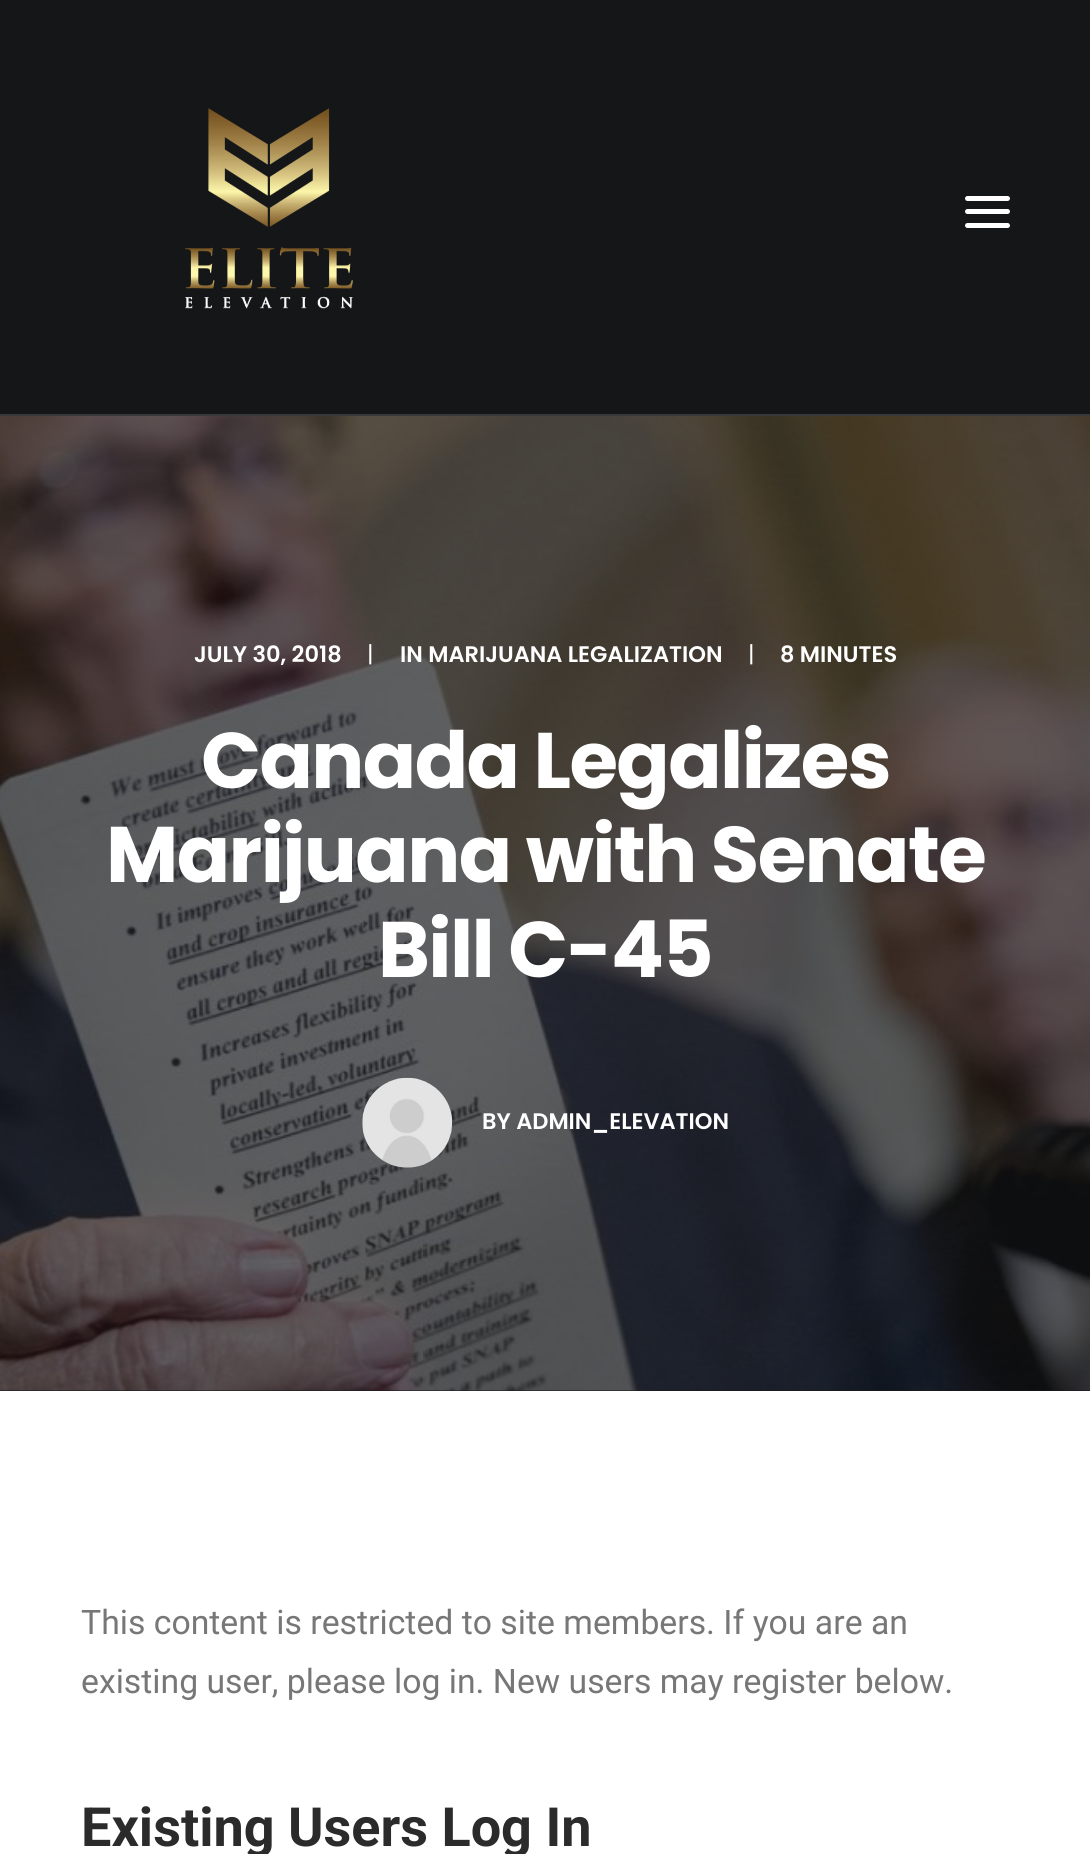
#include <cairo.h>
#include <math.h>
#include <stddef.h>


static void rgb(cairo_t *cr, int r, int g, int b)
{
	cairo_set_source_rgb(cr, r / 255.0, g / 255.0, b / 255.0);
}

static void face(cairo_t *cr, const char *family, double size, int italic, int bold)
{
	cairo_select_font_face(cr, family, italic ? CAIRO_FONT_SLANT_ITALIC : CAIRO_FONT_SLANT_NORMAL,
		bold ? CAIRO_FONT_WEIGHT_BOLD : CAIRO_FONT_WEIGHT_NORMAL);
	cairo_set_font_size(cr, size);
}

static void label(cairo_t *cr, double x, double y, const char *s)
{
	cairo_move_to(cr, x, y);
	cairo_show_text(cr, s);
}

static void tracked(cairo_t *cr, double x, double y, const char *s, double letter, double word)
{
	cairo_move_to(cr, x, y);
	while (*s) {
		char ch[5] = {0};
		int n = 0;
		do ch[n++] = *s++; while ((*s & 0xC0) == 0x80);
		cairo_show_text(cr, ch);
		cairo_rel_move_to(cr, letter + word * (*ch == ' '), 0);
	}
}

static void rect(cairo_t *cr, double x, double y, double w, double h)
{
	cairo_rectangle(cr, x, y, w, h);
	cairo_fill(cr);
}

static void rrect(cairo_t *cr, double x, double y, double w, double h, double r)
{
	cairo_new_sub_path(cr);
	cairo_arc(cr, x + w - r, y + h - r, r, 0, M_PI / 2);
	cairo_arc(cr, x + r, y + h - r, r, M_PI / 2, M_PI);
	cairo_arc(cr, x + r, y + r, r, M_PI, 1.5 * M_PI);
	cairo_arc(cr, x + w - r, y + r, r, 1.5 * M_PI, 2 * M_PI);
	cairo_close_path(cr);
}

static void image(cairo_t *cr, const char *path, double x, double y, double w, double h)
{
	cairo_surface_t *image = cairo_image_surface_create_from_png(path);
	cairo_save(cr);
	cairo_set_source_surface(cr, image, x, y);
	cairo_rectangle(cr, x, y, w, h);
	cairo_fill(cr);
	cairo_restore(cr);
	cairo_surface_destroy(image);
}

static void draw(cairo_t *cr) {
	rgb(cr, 20, 22, 24);
	cairo_paint(cr);
	rgb(cr, 55, 57, 59);
	rect(cr, 0, 414, 1090, 2);
	image(cr, "image0.png", 185, 108, 168, 201);
	rgb(cr, 255, 255, 255);
	rrect(cr, 965, 209, 45, 5, 2.5);
	cairo_fill(cr);
	rrect(cr, 965, 196, 45, 5, 2.5);
	cairo_fill(cr);
	rrect(cr, 965, 223, 45, 5, 2.5);
	cairo_fill(cr);
	image(cr, "image1.png", 0, 416, 1090, 975);
	face(cr, "Poppins SemiBold", 22.5, 0, 0);
	label(cr, 194, 662, "JULY 30, 2018");
	face(cr, "Poppins", 22.5, 0, 0);
	label(cr, 367, 662, "|");
	face(cr, "Poppins SemiBold", 22.5, 0, 0);
	label(cr, 400, 662, "IN MARIJUANA LEGALIZATION");
	face(cr, "Poppins", 22.5, 0, 0);
	label(cr, 748, 662, "|");
	face(cr, "Poppins SemiBold", 22.5, 0, 0);
	label(cr, 780, 662, "8 MINUTES");
	face(cr, "Poppins", 78.75, 0, 1);
	tracked(cr, 201, 788, "Canada Legalizes", -1.6, 0);
	tracked(cr, 106, 882, "Marijuana with Senate", -1.6, 0);
	tracked(cr, 378, 977, "Bill C-45", -1.6, 0);
	image(cr, "image2.png", 362, 1077, 91, 91);
	face(cr, "Poppins SemiBold", 22.5, 0, 0);
	label(cr, 482, 1129, "BY ADMIN_ELEVATION");
	rect(cr, 0, 1391, 1090, 463);
	face(cr, "Roboto", 33.75, 0, 0);
	rgb(cr, 119, 119, 119);
	label(cr, 81, 1634, "This content is restricted to site members. If you are an");
	label(cr, 81, 1693, "existing user, please log in. New users may register below.");
	face(cr, "Roboto", 54, 0, 1);
	rgb(cr, 43, 43, 43);
	label(cr, 81, 1846, "Existing Users Log In");
}

int main(void) {
	cairo_surface_t *surface = cairo_image_surface_create(CAIRO_FORMAT_RGB24, 1090, 1854);
	cairo_t *cr = cairo_create(surface);
	cairo_font_options_t *options = cairo_font_options_create();
	cairo_font_options_set_hint_metrics(options, CAIRO_HINT_METRICS_OFF);
	cairo_font_options_set_hint_style(options, CAIRO_HINT_STYLE_NONE);
	cairo_set_font_options(cr, options);
	cairo_set_miter_limit(cr, 4);
	draw(cr);
	cairo_surface_write_to_png(surface, "render.png");
	cairo_font_options_destroy(options);
	cairo_destroy(cr);
	cairo_surface_destroy(surface);
	return 0;
}
